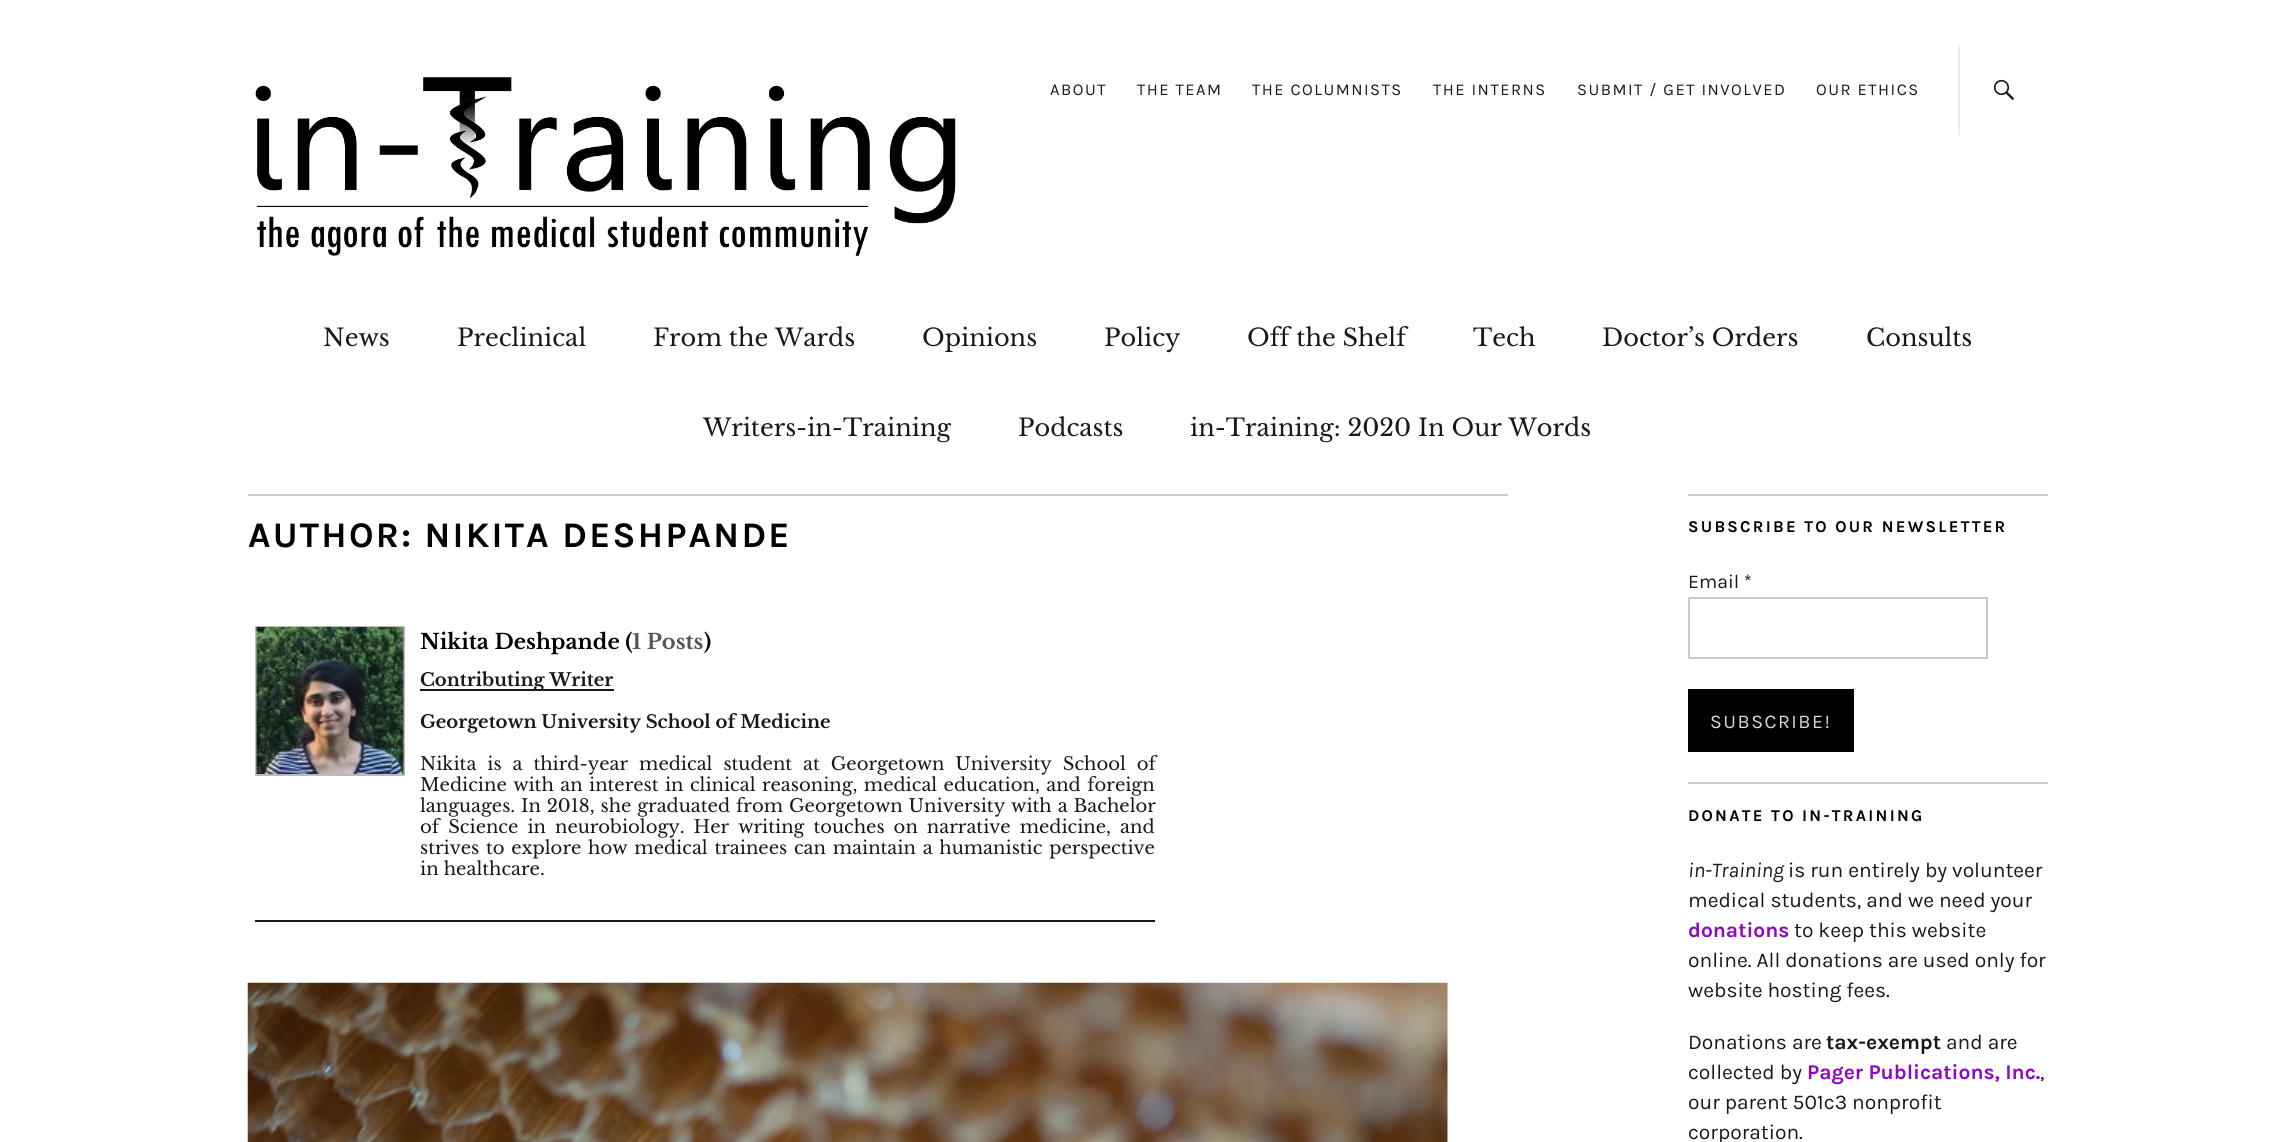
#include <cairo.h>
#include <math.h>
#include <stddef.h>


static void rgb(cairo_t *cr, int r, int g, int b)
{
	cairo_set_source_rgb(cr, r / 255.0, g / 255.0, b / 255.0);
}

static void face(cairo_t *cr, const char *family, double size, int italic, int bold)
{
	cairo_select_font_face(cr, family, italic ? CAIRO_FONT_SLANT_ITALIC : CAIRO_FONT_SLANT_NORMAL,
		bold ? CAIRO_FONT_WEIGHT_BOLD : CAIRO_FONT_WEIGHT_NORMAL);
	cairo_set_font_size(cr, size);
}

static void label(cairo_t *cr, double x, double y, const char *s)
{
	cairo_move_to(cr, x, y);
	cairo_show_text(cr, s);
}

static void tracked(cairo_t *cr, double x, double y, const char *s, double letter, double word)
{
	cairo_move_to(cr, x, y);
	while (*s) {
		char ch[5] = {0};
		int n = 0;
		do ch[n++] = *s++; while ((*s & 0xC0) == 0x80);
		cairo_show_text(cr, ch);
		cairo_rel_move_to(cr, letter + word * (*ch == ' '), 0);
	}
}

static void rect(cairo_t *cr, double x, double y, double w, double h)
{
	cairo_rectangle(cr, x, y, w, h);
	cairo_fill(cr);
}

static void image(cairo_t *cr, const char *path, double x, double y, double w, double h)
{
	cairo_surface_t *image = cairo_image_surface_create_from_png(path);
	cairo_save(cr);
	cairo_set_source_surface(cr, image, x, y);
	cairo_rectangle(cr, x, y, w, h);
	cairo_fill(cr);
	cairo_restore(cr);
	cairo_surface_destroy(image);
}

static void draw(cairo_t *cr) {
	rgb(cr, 255, 255, 255);
	cairo_paint(cr);
	image(cr, "image0.png", 255, 77, 701, 179);
	face(cr, "Karla", 16.5, 0, 0);
	rgb(cr, 25, 25, 25);
	tracked(cr, 1050, 95, "ABOUT", 1.5, 0);
	tracked(cr, 1137, 95, "THE TEAM", 1.5, 0);
	tracked(cr, 1252, 95, "THE COLUMNISTS", 1.5, 0);
	tracked(cr, 1433, 95, "THE INTERNS", 1.5, 0);
	tracked(cr, 1577, 95, "SUBMIT / GET INVOLVED", 1.5, 0);
	tracked(cr, 1816, 95, "OUR ETHICS", 1.5, 0);
	rgb(cr, 237, 237, 237);
	rect(cr, 1958, 45, 2, 90);
	image(cr, "image1.png", 1993, 79, 21, 21);
	face(cr, "Libre Baskerville", 24, 0, 0);
	rgb(cr, 25, 25, 25);
	label(cr, 323, 346, "News");
	label(cr, 457, 346, "Preclinical");
	label(cr, 653, 346, "From the Wards");
	label(cr, 922, 346, "Opinions");
	label(cr, 1104, 346, "Policy");
	label(cr, 1247, 346, "Off the Shelf");
	label(cr, 1473, 346, "Tech");
	label(cr, 1602, 346, "Doctor’s Orders");
	label(cr, 1866, 346, "Consults");
	label(cr, 703, 436, "Writers-in-Training");
	label(cr, 1018, 436, "Podcasts");
	label(cr, 1190, 436, "in-Training: 2020 In Our Words");
	rgb(cr, 204, 204, 204);
	rect(cr, 248, 494, 1260, 2);
	face(cr, "Karla", 36, 0, 1);
	rgb(cr, 0, 0, 0);
	tracked(cr, 248, 547, "AUTHOR: NIKITA DESHPANDE", 2.25, 0);
	cairo_rectangle(cr, 256, 627, 148, 148);
	rgb(cr, 187, 187, 187);
	cairo_stroke(cr);
	image(cr, "image2.png", 256, 627, 148, 147);
	face(cr, "Libre Baskerville", 21, 0, 1);
	rgb(cr, 0, 0, 0);
	label(cr, 420, 649, "Nikita Deshpande (");
	rgb(cr, 85, 85, 85);
	label(cr, 632, 649, "1 Posts");
	rgb(cr, 0, 0, 0);
	label(cr, 704, 649, ")");
	rgb(cr, 25, 25, 25);
	rect(cr, 420, 689, 194, 2);
	face(cr, "Libre Baskerville", 18, 0, 1);
	label(cr, 420, 686, "Contributing Writer");
	label(cr, 420, 728, "Georgetown University School of Medicine");
	face(cr, "Libre Baskerville", 18, 0, 0);
	tracked(cr, 420, 770, "Nikita is a third-year medical student at Georgetown University School of", 0, 5.75);
	tracked(cr, 420, 791, "Medicine with an interest in clinical reasoning, medical education, and foreign", 0, 1.25);
	tracked(cr, 420, 812, "languages. In 2018, she graduated from Georgetown University with a Bachelor", 0, 0.75);
	tracked(cr, 420, 833, "of Science in neurobiology. Her writing touches on narrative medicine, and", 0, 3.9);
	tracked(cr, 420, 854, "strives to explore how medical trainees can maintain a humanistic perspective", 0, 1.6);
	label(cr, 420, 875, "in healthcare.");
	rect(cr, 255, 920, 900, 2);
	image(cr, "image3.png", 247, 982, 1201, 160);
	rgb(cr, 204, 204, 204);
	rect(cr, 1688, 494, 360, 2);
	rect(cr, 1688, 782, 360, 2);
	face(cr, "Karla", 16.5, 0, 1);
	rgb(cr, 0, 0, 0);
	tracked(cr, 1688, 532, "SUBSCRIBE TO OUR NEWSLETTER", 2.25, 0);
	face(cr, "Karla", 19.5, 0, 0);
	rgb(cr, 25, 25, 25);
	label(cr, 1688, 588, "Email *");
	cairo_rectangle(cr, 1689, 598, 298, 60);
	rgb(cr, 202, 202, 202);
	cairo_stroke(cr);
	rgb(cr, 0, 0, 0);
	rect(cr, 1688, 689, 166, 63);
	rgb(cr, 217, 217, 217);
	tracked(cr, 1710, 728, "SUBSCRIBE!", 1.5, 0);
	face(cr, "Karla", 16.5, 0, 1);
	rgb(cr, 0, 0, 0);
	tracked(cr, 1688, 821, "DONATE TO IN-TRAINING", 2.25, 0);
	face(cr, "Karla", 21, 1, 0);
	rgb(cr, 25, 25, 25);
	label(cr, 1688, 877, "in-Training");
	face(cr, "Karla", 21, 0, 0);
	label(cr, 1788, 877, "is run entirely by volunteer");
	label(cr, 1688, 907, "medical students, and we need your");
	face(cr, "Karla", 21, 0, 1);
	rgb(cr, 141, 9, 193);
	label(cr, 1688, 937, "donations");
	face(cr, "Karla", 21, 0, 0);
	rgb(cr, 25, 25, 25);
	label(cr, 1794, 937, "to keep this website");
	label(cr, 1688, 967, "online. All donations are used only for");
	label(cr, 1688, 997, "website hosting fees.");
	label(cr, 1688, 1049, "Donations are");
	face(cr, "Karla", 21, 0, 1);
	label(cr, 1826, 1049, "tax-exempt");
	face(cr, "Karla", 21, 0, 0);
	label(cr, 1946, 1049, "and are");
	label(cr, 1688, 1079, "collected by");
	face(cr, "Karla", 21, 0, 1);
	rgb(cr, 141, 9, 193);
	label(cr, 1807, 1079, "Pager Publications, Inc.");
	face(cr, "Karla", 21, 0, 0);
	rgb(cr, 25, 25, 25);
	label(cr, 2040, 1079, ",");
	label(cr, 1688, 1109, "our parent 501c3 nonprofit");
	label(cr, 1688, 1139, "corporation.");
}

int main(void) {
	cairo_surface_t *surface = cairo_image_surface_create(CAIRO_FORMAT_RGB24, 2295, 1142);
	cairo_t *cr = cairo_create(surface);
	cairo_font_options_t *options = cairo_font_options_create();
	cairo_font_options_set_hint_metrics(options, CAIRO_HINT_METRICS_OFF);
	cairo_font_options_set_hint_style(options, CAIRO_HINT_STYLE_NONE);
	cairo_set_font_options(cr, options);
	cairo_set_miter_limit(cr, 4);
	draw(cr);
	cairo_surface_write_to_png(surface, "render.png");
	cairo_font_options_destroy(options);
	cairo_destroy(cr);
	cairo_surface_destroy(surface);
	return 0;
}
